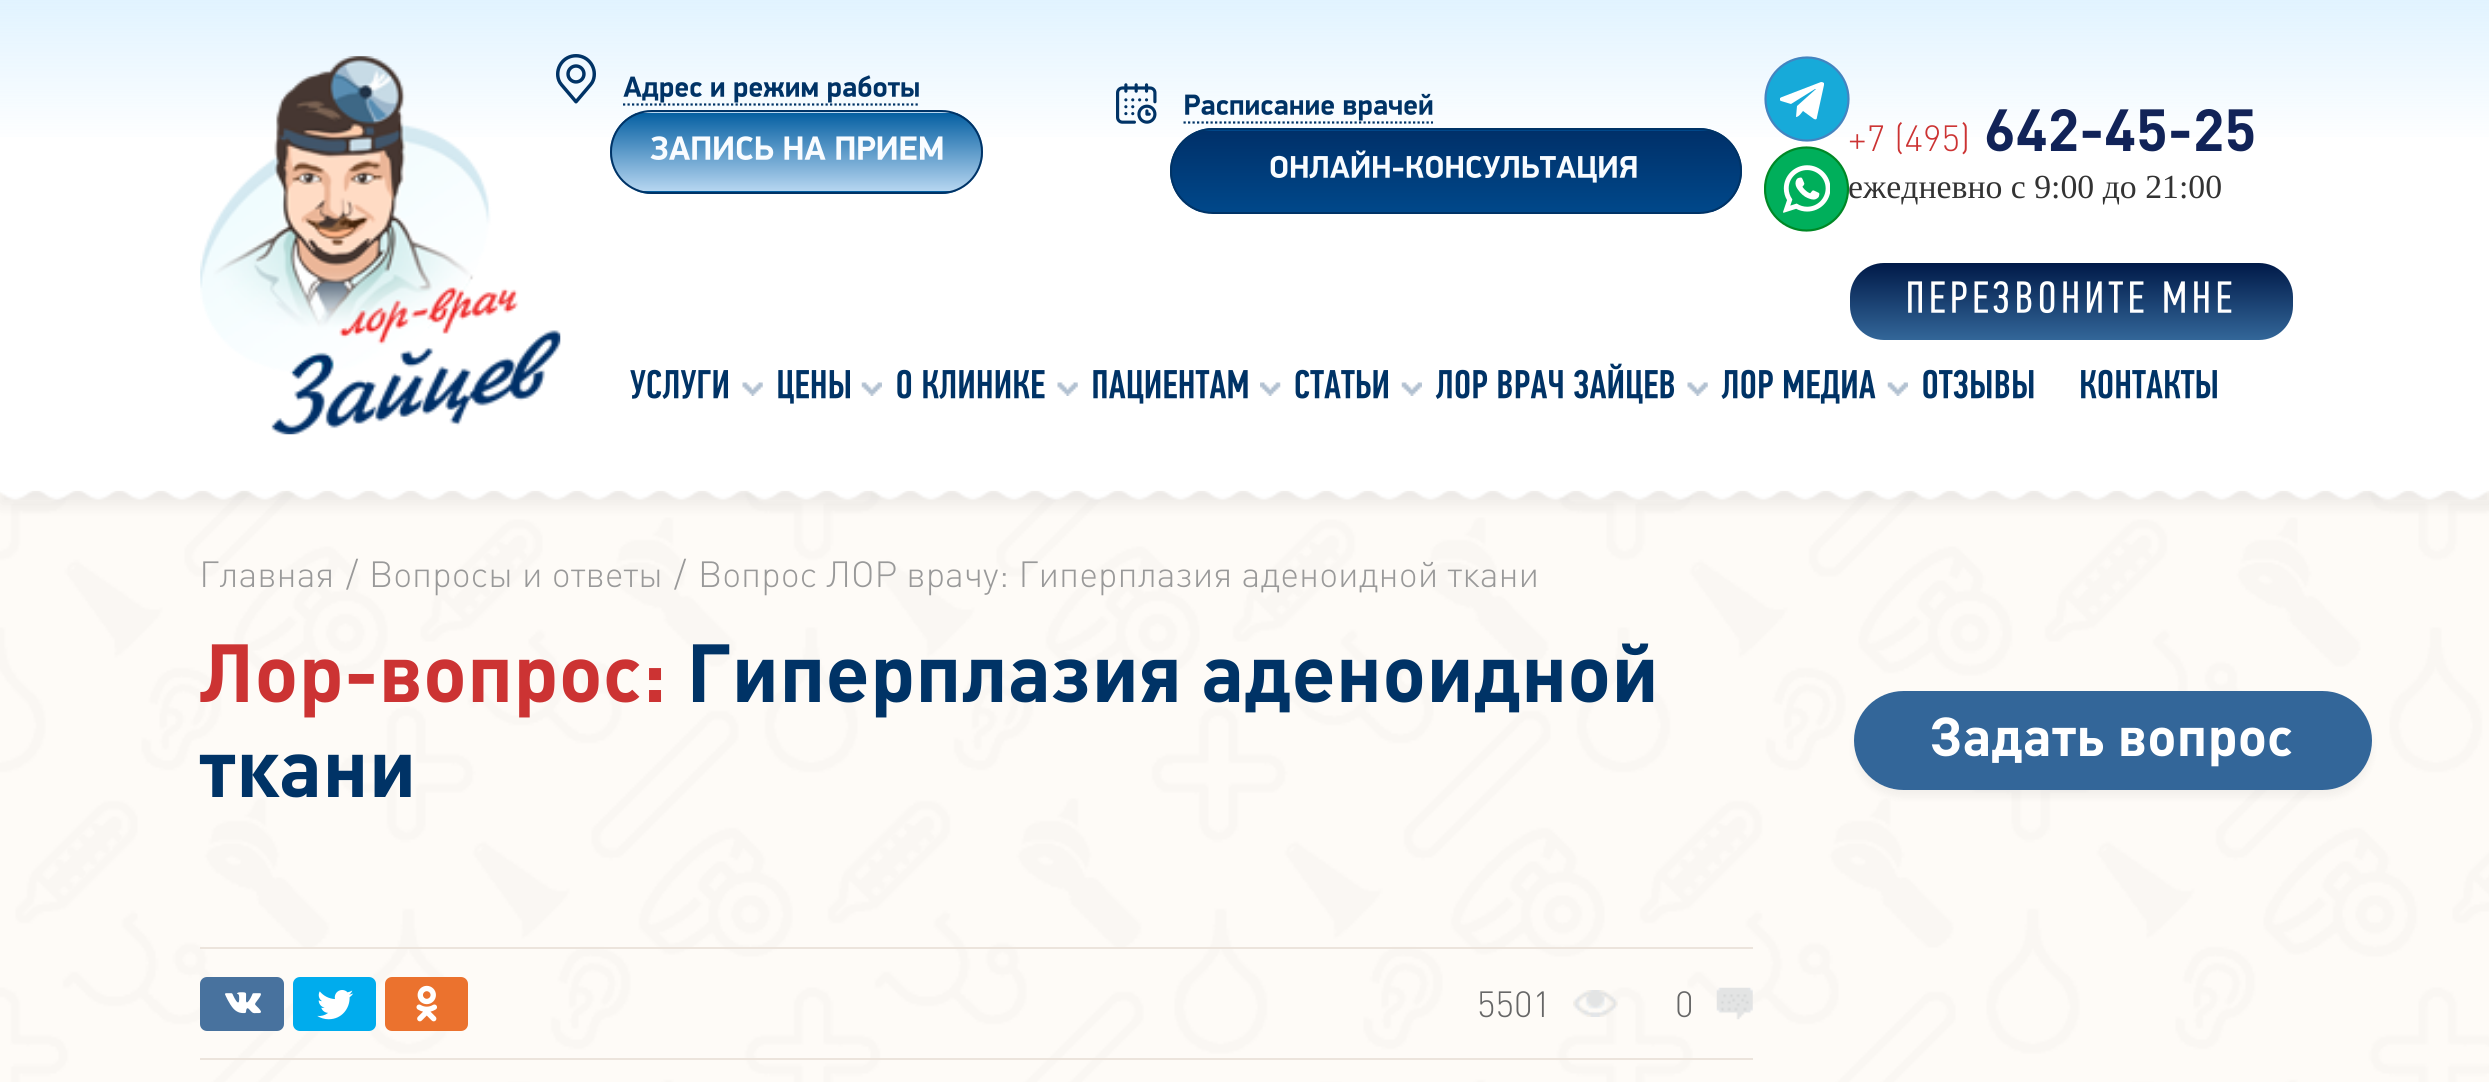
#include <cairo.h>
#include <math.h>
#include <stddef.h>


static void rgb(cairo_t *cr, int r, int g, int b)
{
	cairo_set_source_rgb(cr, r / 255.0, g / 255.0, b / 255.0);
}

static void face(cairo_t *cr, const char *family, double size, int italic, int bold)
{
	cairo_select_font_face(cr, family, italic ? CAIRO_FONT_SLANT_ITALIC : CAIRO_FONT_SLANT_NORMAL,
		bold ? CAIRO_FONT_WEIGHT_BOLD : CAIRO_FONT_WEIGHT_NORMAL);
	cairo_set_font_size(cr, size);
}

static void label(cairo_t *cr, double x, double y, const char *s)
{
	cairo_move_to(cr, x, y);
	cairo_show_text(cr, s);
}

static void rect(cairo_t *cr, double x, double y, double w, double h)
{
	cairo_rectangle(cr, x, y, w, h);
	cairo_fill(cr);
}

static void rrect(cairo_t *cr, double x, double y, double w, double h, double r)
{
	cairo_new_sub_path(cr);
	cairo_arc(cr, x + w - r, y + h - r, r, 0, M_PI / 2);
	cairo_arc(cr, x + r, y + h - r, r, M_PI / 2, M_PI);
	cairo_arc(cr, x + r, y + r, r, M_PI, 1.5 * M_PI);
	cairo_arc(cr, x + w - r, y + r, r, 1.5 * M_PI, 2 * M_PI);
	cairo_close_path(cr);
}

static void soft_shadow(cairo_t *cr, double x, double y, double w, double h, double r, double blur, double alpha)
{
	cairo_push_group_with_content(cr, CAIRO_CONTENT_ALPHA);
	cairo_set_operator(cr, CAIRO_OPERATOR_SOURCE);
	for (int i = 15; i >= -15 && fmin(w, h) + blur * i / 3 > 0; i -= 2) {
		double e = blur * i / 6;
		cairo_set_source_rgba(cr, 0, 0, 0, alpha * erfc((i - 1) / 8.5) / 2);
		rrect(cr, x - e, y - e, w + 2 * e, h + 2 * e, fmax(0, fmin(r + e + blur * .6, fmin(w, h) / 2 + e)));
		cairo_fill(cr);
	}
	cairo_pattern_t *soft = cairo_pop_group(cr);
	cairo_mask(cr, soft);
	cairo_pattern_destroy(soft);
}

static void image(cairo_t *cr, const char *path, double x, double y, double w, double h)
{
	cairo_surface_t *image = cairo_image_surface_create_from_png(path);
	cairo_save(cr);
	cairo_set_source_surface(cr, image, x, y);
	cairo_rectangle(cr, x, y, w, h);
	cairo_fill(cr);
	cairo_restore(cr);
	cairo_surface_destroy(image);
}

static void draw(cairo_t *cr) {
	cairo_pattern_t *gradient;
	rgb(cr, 255, 255, 255);
	cairo_paint(cr);
	gradient = cairo_pattern_create_linear(1245, 491, 1245, 0);
	cairo_pattern_add_color_stop_rgba(gradient, 0.7, 0.882, 0.953, 1, 0);
	cairo_pattern_add_color_stop_rgba(gradient, 1, 0.882, 0.953, 1, 1);
	cairo_set_source(cr, gradient);
	cairo_pattern_destroy(gradient);
	rect(cr, 0, 0, 2489, 137);
	image(cr, "image0.png", 200, 56, 361, 379);
	image(cr, "image1.png", 556, 54, 40, 50);
	cairo_new_path(cr);
	cairo_move_to(cr, 623, 104.5);
	cairo_line_to(cr, 920, 104.5);
	rgb(cr, 0, 51, 102);
	cairo_set_line_width(cr, 2.2);
	cairo_set_dash(cr, (double[]){2.25, 2.25}, 2, 0);
	cairo_stroke(cr);
	image(cr, "image2.png", 623, 75, 296, 28);
	cairo_save(cr);
	rrect(cr, 610, 110, 373, 84, 42);
	cairo_clip(cr);
	gradient = cairo_pattern_create_linear(797, 34, 797, 113);
	cairo_pattern_add_color_stop_rgba(gradient, 0, 0.012, 0.369, 0.631, 1);
	cairo_pattern_add_color_stop_rgba(gradient, 1, 0.714, 0.839, 0.945, 1);
	cairo_set_source(cr, gradient);
	cairo_pattern_destroy(gradient);
	rect(cr, 636, 110, 321, 3);
	gradient = cairo_pattern_create_linear(797, 112, 797, 191);
	cairo_pattern_add_color_stop_rgba(gradient, 0, 0.012, 0.369, 0.631, 1);
	cairo_pattern_add_color_stop_rgba(gradient, 1, 0.714, 0.839, 0.945, 1);
	cairo_set_source(cr, gradient);
	cairo_pattern_destroy(gradient);
	rect(cr, 610, 113, 373, 78);
	gradient = cairo_pattern_create_linear(797, 191, 797, 270);
	cairo_pattern_add_color_stop_rgba(gradient, 0, 0.012, 0.369, 0.631, 1);
	cairo_pattern_add_color_stop_rgba(gradient, 1, 0.714, 0.839, 0.945, 1);
	cairo_set_source(cr, gradient);
	cairo_pattern_destroy(gradient);
	rect(cr, 636, 191, 321, 3);
	cairo_restore(cr);
	rrect(cr, 611, 111, 371, 82, 41);
	cairo_set_line_width(cr, 2);
	cairo_set_dash(cr, NULL, 0, 0);
	cairo_stroke(cr);
	image(cr, "image3.png", 650, 136, 293, 24);
	image(cr, "image4.png", 1116, 83, 41, 41);
	cairo_new_path(cr);
	cairo_move_to(cr, 1183.5, 122.5);
	cairo_line_to(cr, 1433, 122.5);
	cairo_set_line_width(cr, 2.2);
	cairo_set_dash(cr, (double[]){2.25, 2.25}, 2, 0);
	cairo_stroke(cr);
	image(cr, "image5.png", 1185, 93, 248, 28);
	cairo_save(cr);
	rrect(cr, 1170, 128, 572, 86, 43);
	cairo_clip(cr);
	gradient = cairo_pattern_create_linear(1456, 49, 1456, 131);
	cairo_pattern_add_color_stop_rgba(gradient, 0, 0, 0.188, 0.412, 1);
	cairo_pattern_add_color_stop_rgba(gradient, 1, 0, 0.282, 0.541, 1);
	cairo_set_source(cr, gradient);
	cairo_pattern_destroy(gradient);
	rect(cr, 1197, 128, 518, 3);
	gradient = cairo_pattern_create_linear(1456, 130, 1456, 212);
	cairo_pattern_add_color_stop_rgba(gradient, 0, 0, 0.188, 0.412, 1);
	cairo_pattern_add_color_stop_rgba(gradient, 1, 0, 0.282, 0.541, 1);
	cairo_set_source(cr, gradient);
	cairo_pattern_destroy(gradient);
	rect(cr, 1170, 131, 572, 81);
	cairo_restore(cr);
	rrect(cr, 1171, 129, 570, 84, 42);
	cairo_set_line_width(cr, 2);
	cairo_set_dash(cr, NULL, 0, 0);
	cairo_stroke(cr);
	image(cr, "image6.png", 1270, 150, 367, 33);
	rgb(cr, 23, 170, 217);
	cairo_arc(cr, 1807, 99, 41.5, 0, 2 * M_PI);
	cairo_fill_preserve(cr);
	rgb(cr, 67, 132, 192);
	cairo_set_line_width(cr, 2.2);
	cairo_stroke(cr);
	cairo_save(cr);
	cairo_rectangle(cr, 1780, 78, 44, 45);
	cairo_clip(cr);
	rgb(cr, 255, 255, 255);
	cairo_new_path(cr);
	cairo_move_to(cr, 1797, 106);
	cairo_line_to(cr, 1796, 117);
	cairo_curve_to(cr, 1799, 117, 1802, 112, 1803, 111);
	cairo_line_to(cr, 1814, 119);
	cairo_curve_to(cr, 1816, 120, 1817, 119, 1817, 117);
	cairo_line_to(cr, 1824, 85);
	cairo_curve_to(cr, 1825, 83, 1823, 82, 1821, 82);
	cairo_line_to(cr, 1782, 97);
	cairo_curve_to(cr, 1779, 98, 1779, 100, 1781, 101);
	cairo_line_to(cr, 1791, 104);
	cairo_line_to(cr, 1815, 89);
	cairo_line_to(cr, 1816, 89);
	cairo_close_path(cr);
	cairo_fill(cr);
	cairo_restore(cr);
	image(cr, "image7.png", 1764, 146, 86, 86);
	face(cr, "DIN Light", 36, 0, 0);
	rgb(cr, 204, 51, 51);
	label(cr, 1848, 151, "+7 (495)");
	face(cr, "DIN", 58.5, 0, 1);
	rgb(cr, 17, 35, 88);
	label(cr, 1984, 151, "642-45-25");
	face(cr, "Liberation Serif", 33.75, 0, 0);
	rgb(cr, 51, 51, 51);
	label(cr, 1848, 198, "ежедневно с 9:00 до 21:00");
	gradient = cairo_pattern_create_linear(2071, 263, 2071, 340);
	cairo_pattern_add_color_stop_rgba(gradient, 0, 0, 0.102, 0.282, 1);
	cairo_pattern_add_color_stop_rgba(gradient, 1, 0.2, 0.4, 0.6, 1);
	cairo_set_source(cr, gradient);
	cairo_pattern_destroy(gradient);
	rrect(cr, 1850, 263, 443, 77, 34);
	cairo_fill(cr);
	image(cr, "image8.png", 1908, 281, 324, 33);
	image(cr, "image9.png", 630, 369, 98, 30);
	image(cr, "image10.png", 742, 382, 21, 14);
	image(cr, "image11.png", 778, 370, 72, 34);
	image(cr, "image12.png", 861, 382, 21, 14);
	image(cr, "image13.png", 897, 369, 148, 30);
	image(cr, "image14.png", 1057, 382, 21, 14);
	image(cr, "image15.png", 1093, 370, 155, 34);
	image(cr, "image16.png", 1260, 382, 21, 14);
	image(cr, "image17.png", 1295, 369, 93, 30);
	image(cr, "image18.png", 1401, 382, 21, 14);
	image(cr, "image19.png", 1435, 363, 240, 41);
	image(cr, "image14.png", 1687, 382, 21, 14);
	image(cr, "image20.png", 1721, 369, 155, 35);
	image(cr, "image18.png", 1887, 382, 21, 14);
	image(cr, "image21.png", 1923, 369, 111, 30);
	image(cr, "image22.png", 2081, 369, 136, 30);
	image(cr, "image24.png", 0, 490, 2489, 592);
	cairo_save(cr);
	cairo_set_fill_rule(cr, CAIRO_FILL_RULE_EVEN_ODD);
	cairo_new_path(cr);
	cairo_move_to(cr, 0, 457);
	cairo_line_to(cr, 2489, 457);
	cairo_line_to(cr, 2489, 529);
	cairo_line_to(cr, 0, 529);
	cairo_close_path(cr);
	cairo_move_to(cr, 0, 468);
	cairo_line_to(cr, 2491, 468);
	cairo_line_to(cr, 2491, 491);
	cairo_line_to(cr, 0, 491);
	cairo_close_path(cr);
	cairo_clip(cr);
	rgb(cr, 20, 20, 20);
	soft_shadow(cr, 0, 482, 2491, 22, 0, 8, 0.08);
	cairo_restore(cr);
	image(cr, "image23.png", 0, 490, 2489, 10);
	face(cr, "DIN Light", 36, 0, 0);
	rgb(cr, 153, 153, 153);
	label(cr, 199, 587, "Главная");
	label(cr, 346, 587, "/");
	label(cr, 369, 587, "Вопросы и ответы");
	label(cr, 674, 587, "/");
	label(cr, 698, 587, "Вопрос ЛОР врачу: Гиперплазия аденоидной ткани");
	face(cr, "DIN", 81, 0, 1);
	rgb(cr, 204, 51, 51);
	label(cr, 199, 702, "Лор-вопрос:");
	rgb(cr, 0, 51, 102);
	label(cr, 686, 702, "Гиперплазия аденоидной");
	label(cr, 199, 797, "ткани");
	rgb(cr, 236, 228, 220);
	rect(cr, 200, 947, 1553, 2);
	rect(cr, 200, 1058, 1553, 2);
	rgb(cr, 72, 114, 158);
	rrect(cr, 200, 977, 84, 54, 7);
	cairo_fill(cr);
	image(cr, "image25.png", 225, 992, 36, 22);
	rgb(cr, 0, 172, 237);
	rrect(cr, 293, 977, 83, 54, 7);
	cairo_fill(cr);
	image(cr, "image26.png", 317, 990, 37, 30);
	rgb(cr, 235, 114, 46);
	rrect(cr, 385, 977, 83, 54, 7);
	cairo_fill(cr);
	image(cr, "image27.png", 416, 985, 21, 37);
	face(cr, "DIN Light", 36, 0, 0);
	rgb(cr, 102, 102, 102);
	label(cr, 1477, 1017, "5501");
	image(cr, "image28.png", 1573, 990, 45, 27);
	label(cr, 1675, 1017, "0");
	image(cr, "image29.png", 1716, 987, 37, 33);
	rgb(cr, 20, 20, 20);
	soft_shadow(cr, 1854, 698, 518, 99, 49.5, 3.5, 0.05);
	rgb(cr, 51, 102, 153);
	rrect(cr, 1856.5, 693.5, 513, 94, 47);
	cairo_fill_preserve(cr);
	cairo_set_line_width(cr, 5);
	cairo_stroke(cr);
	face(cr, "DIN", 54, 0, 1);
	rgb(cr, 255, 255, 255);
	label(cr, 1930, 756, "Задать вопрос");
}

int main(void) {
	cairo_surface_t *surface = cairo_image_surface_create(CAIRO_FORMAT_RGB24, 2489, 1082);
	cairo_t *cr = cairo_create(surface);
	cairo_font_options_t *options = cairo_font_options_create();
	cairo_font_options_set_hint_metrics(options, CAIRO_HINT_METRICS_OFF);
	cairo_font_options_set_hint_style(options, CAIRO_HINT_STYLE_NONE);
	cairo_set_font_options(cr, options);
	cairo_set_miter_limit(cr, 4);
	draw(cr);
	cairo_surface_write_to_png(surface, "render.png");
	cairo_font_options_destroy(options);
	cairo_destroy(cr);
	cairo_surface_destroy(surface);
	return 0;
}
